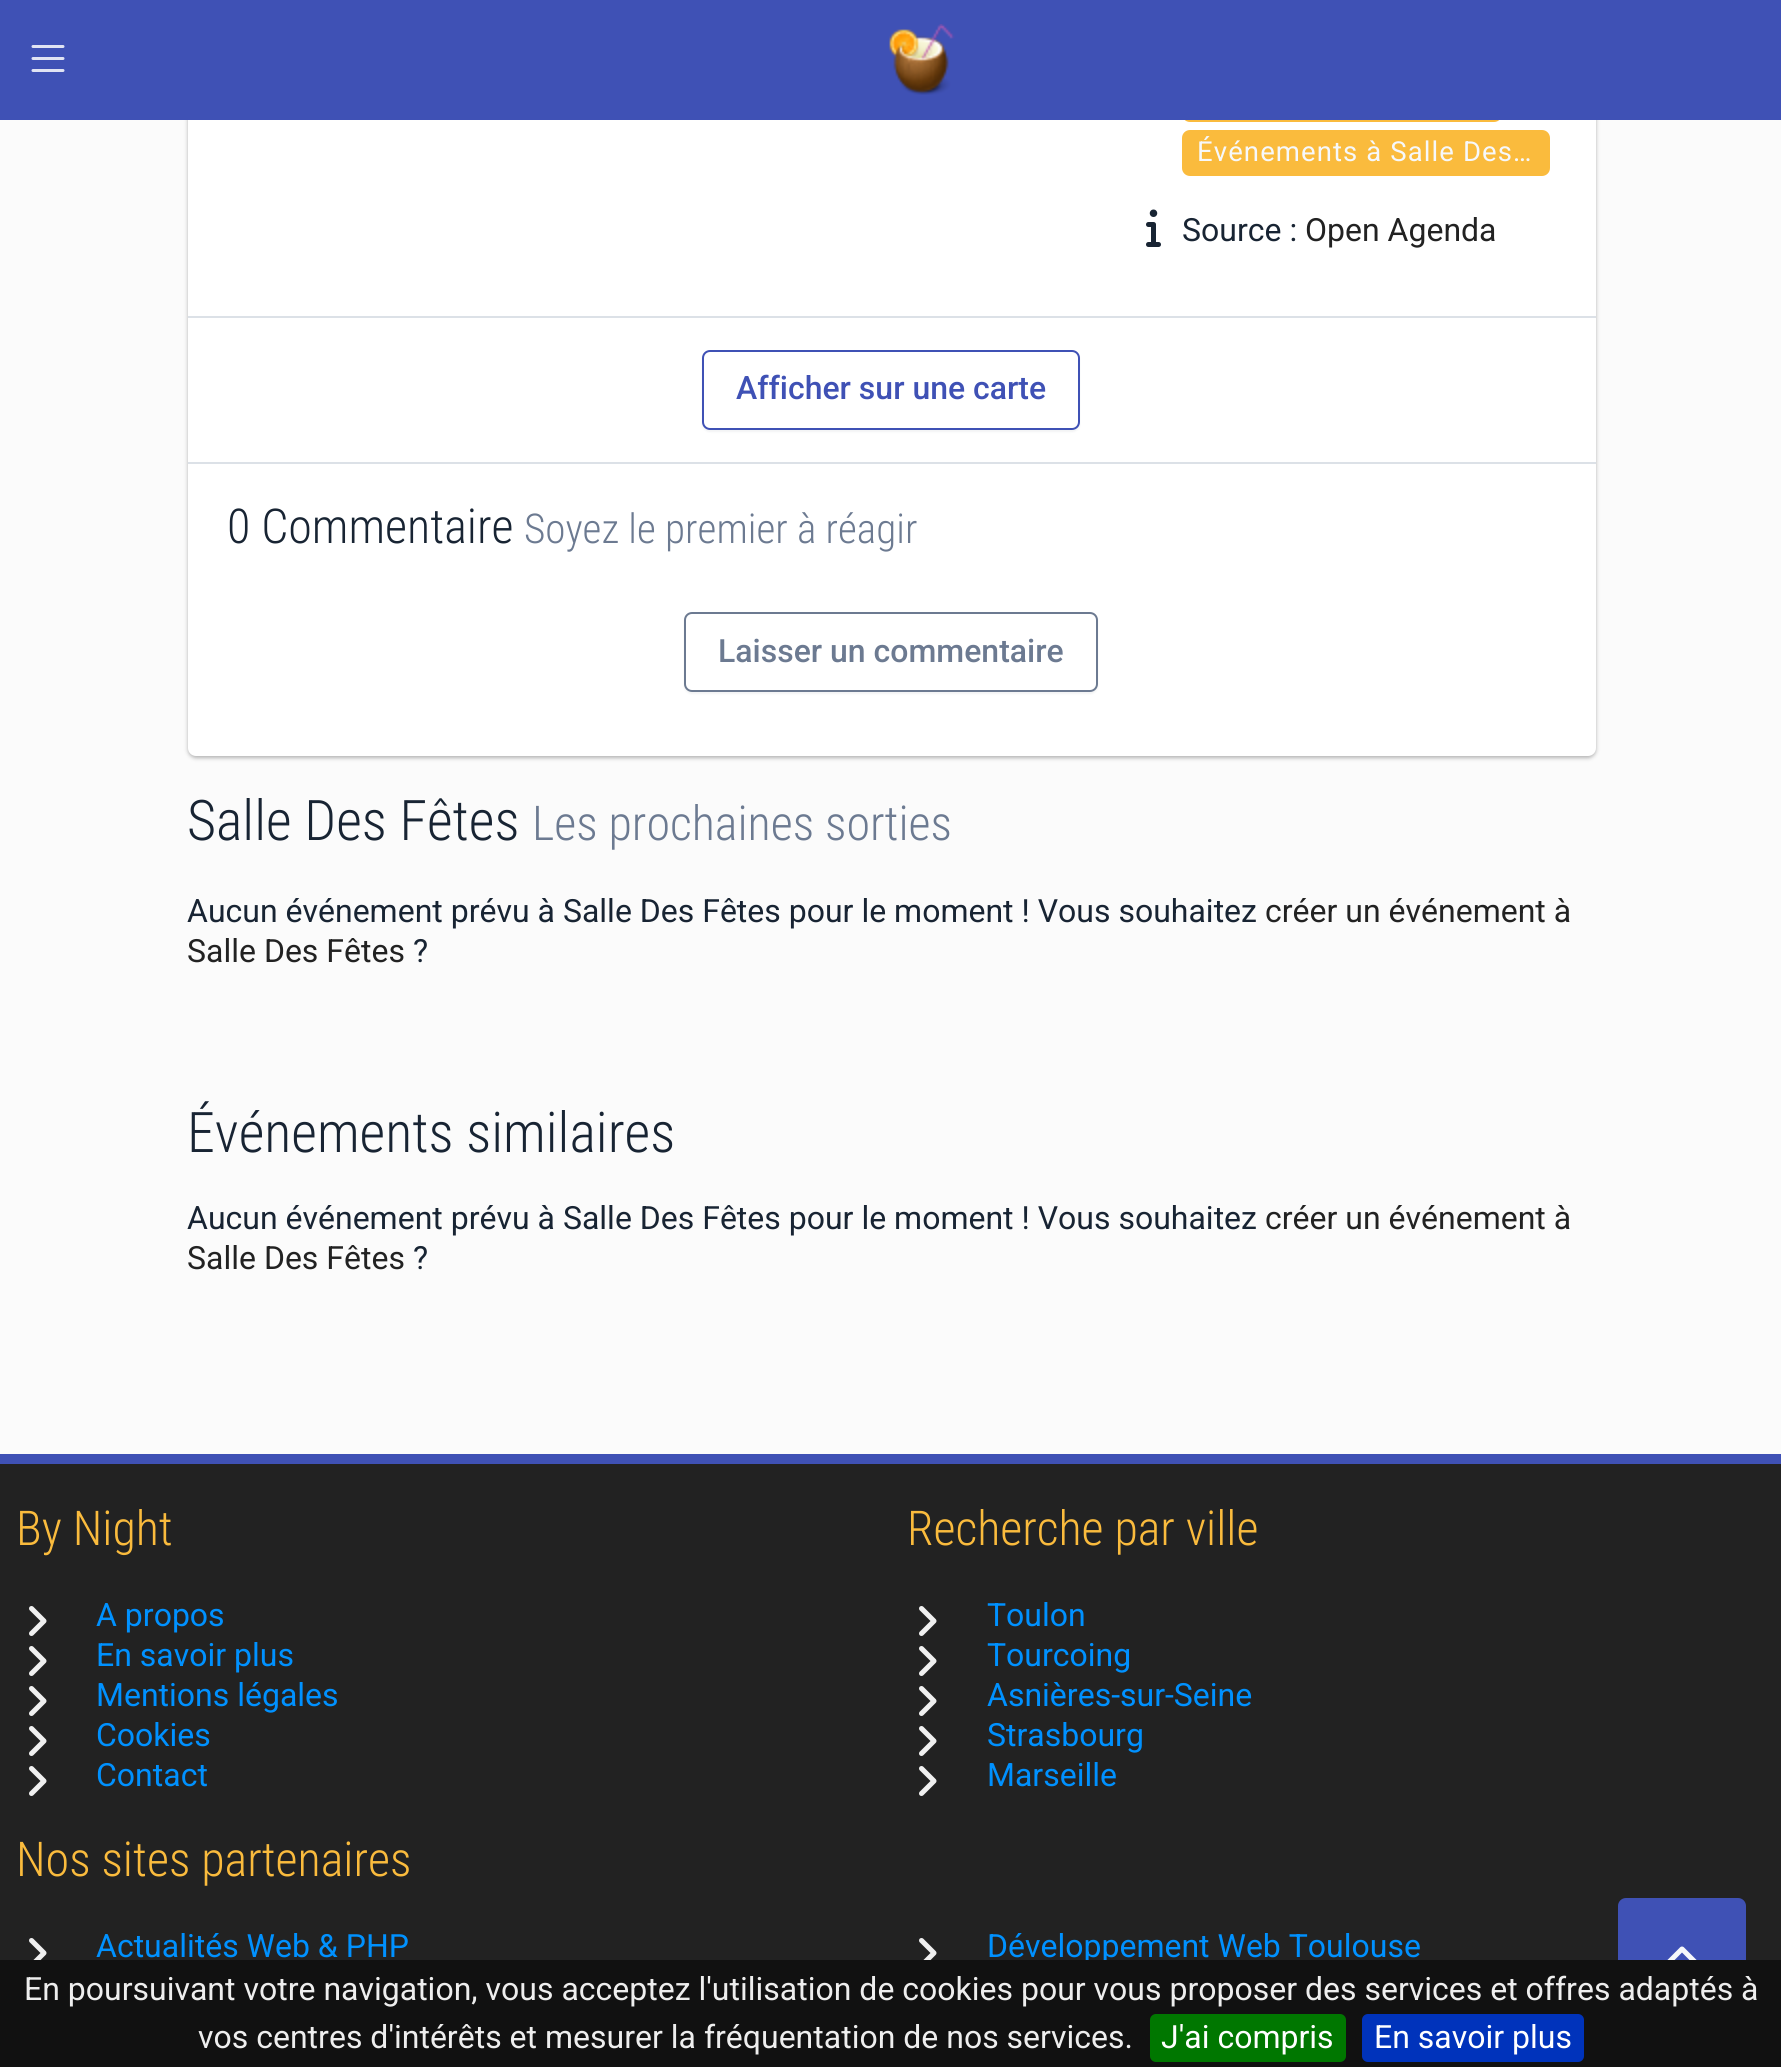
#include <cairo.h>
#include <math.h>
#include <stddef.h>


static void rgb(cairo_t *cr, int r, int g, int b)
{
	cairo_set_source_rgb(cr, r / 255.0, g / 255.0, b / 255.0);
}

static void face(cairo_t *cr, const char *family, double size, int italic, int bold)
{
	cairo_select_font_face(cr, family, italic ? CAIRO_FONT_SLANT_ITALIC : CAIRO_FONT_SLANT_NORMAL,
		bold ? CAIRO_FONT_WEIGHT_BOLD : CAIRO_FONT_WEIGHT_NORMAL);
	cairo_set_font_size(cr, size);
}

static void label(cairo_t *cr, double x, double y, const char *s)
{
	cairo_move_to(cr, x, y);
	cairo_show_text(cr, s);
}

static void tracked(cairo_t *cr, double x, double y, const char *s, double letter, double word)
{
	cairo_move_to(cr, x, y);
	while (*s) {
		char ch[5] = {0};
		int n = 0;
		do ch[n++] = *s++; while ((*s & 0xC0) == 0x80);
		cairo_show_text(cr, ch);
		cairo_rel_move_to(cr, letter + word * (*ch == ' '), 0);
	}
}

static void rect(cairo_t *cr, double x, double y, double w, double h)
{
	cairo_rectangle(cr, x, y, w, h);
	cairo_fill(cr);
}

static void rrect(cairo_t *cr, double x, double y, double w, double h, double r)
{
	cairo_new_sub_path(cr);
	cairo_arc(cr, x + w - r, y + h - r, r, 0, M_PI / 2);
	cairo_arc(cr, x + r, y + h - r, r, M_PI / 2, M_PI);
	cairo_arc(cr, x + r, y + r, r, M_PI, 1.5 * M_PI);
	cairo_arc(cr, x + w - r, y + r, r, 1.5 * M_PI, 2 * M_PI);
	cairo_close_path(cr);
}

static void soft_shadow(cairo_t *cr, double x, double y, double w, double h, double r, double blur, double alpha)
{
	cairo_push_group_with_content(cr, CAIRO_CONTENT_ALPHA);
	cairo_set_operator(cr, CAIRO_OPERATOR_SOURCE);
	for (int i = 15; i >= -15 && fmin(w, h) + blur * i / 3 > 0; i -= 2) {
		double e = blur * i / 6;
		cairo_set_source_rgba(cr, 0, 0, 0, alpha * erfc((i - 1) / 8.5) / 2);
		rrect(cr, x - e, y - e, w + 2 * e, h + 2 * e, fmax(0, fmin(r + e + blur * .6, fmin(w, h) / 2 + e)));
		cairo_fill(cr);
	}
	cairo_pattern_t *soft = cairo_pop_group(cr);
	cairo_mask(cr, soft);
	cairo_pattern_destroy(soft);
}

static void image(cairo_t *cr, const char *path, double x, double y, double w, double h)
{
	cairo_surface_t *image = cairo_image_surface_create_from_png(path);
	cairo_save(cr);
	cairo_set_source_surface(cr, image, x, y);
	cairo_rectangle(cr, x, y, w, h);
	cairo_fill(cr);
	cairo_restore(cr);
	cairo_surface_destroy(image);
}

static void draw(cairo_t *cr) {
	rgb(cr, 251, 251, 251);
	cairo_paint(cr);
	rgb(cr, 179, 179, 179);
	soft_shadow(cr, 188, -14, 1408, 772, 8, 2, 1);
	rgb(cr, 255, 255, 255);
	rrect(cr, 188, -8, 1408, 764, 8);
	cairo_fill(cr);
	rgb(cr, 250, 187, 61);
	rrect(cr, 1182, 76, 320, 46, 8);
	cairo_fill(cr);
	rgb(cr, 63, 81, 181);
	rect(cr, 0, 0, 1781, 120);
	image(cr, "image0.png", 31, 45, 34, 27);
	image(cr, "image1.png", 889, 24, 66, 71);
	rgb(cr, 250, 187, 61);
	rrect(cr, 1182, 130, 368, 46, 8);
	cairo_fill(cr);
	face(cr, "Roboto", 27.5, 0, 0);
	rgb(cr, 246, 248, 251);
	tracked(cr, 1197, 161, "Événements à Salle Des…", 1.1, 0);
	image(cr, "image2.png", 1146, 209, 15, 38);
	face(cr, "Roboto", 32, 0, 0);
	rgb(cr, 24, 36, 51);
	label(cr, 1182, 241, "Source :");
	rgb(cr, 34, 34, 34);
	label(cr, 1305, 241, "Open Agenda");
	rgb(cr, 220, 225, 231);
	rect(cr, 188, 316, 1408, 2);
	cairo_save(cr);
	cairo_set_fill_rule(cr, CAIRO_FILL_RULE_EVEN_ODD);
	cairo_new_path(cr);
	cairo_move_to(cr, 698, 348);
	cairo_line_to(cr, 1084, 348);
	cairo_line_to(cr, 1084, 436);
	cairo_line_to(cr, 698, 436);
	cairo_close_path(cr);
	cairo_move_to(cr, 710, 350);
	cairo_line_to(cr, 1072, 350);
	cairo_curve_to(cr, 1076.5, 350, 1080, 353.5, 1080, 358);
	cairo_line_to(cr, 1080, 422);
	cairo_curve_to(cr, 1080, 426.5, 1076.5, 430, 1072, 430);
	cairo_line_to(cr, 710, 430);
	cairo_curve_to(cr, 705.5, 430, 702, 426.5, 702, 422);
	cairo_line_to(cr, 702, 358);
	cairo_curve_to(cr, 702, 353.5, 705.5, 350, 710, 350);
	cairo_close_path(cr);
	cairo_clip(cr);
	rgb(cr, 24, 36, 51);
	soft_shadow(cr, 702, 352, 378, 80, 8, 1, 0.06);
	cairo_restore(cr);
	rrect(cr, 703, 351, 376, 78, 7);
	rgb(cr, 63, 81, 181);
	cairo_stroke(cr);
	face(cr, "Roboto Medium", 32, 0, 0);
	label(cr, 736, 399, "Afficher sur une carte");
	rgb(cr, 220, 225, 231);
	rect(cr, 188, 462, 1408, 2);
	face(cr, "Roboto Condensed Light", 48, 0, 0);
	rgb(cr, 24, 36, 51);
	label(cr, 227, 543, "0 Commentaire");
	face(cr, "Roboto Condensed Light", 41.1, 0, 0);
	rgb(cr, 108, 122, 145);
	label(cr, 524, 543, "Soyez le premier à réagir");
	cairo_save(cr);
	cairo_set_fill_rule(cr, CAIRO_FILL_RULE_EVEN_ODD);
	cairo_new_path(cr);
	cairo_move_to(cr, 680, 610);
	cairo_line_to(cr, 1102, 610);
	cairo_line_to(cr, 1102, 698);
	cairo_line_to(cr, 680, 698);
	cairo_close_path(cr);
	cairo_move_to(cr, 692, 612);
	cairo_line_to(cr, 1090, 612);
	cairo_curve_to(cr, 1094.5, 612, 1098, 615.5, 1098, 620);
	cairo_line_to(cr, 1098, 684);
	cairo_curve_to(cr, 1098, 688.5, 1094.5, 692, 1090, 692);
	cairo_line_to(cr, 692, 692);
	cairo_curve_to(cr, 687.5, 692, 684, 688.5, 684, 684);
	cairo_line_to(cr, 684, 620);
	cairo_curve_to(cr, 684, 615.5, 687.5, 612, 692, 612);
	cairo_close_path(cr);
	cairo_clip(cr);
	rgb(cr, 24, 36, 51);
	soft_shadow(cr, 684, 614, 414, 80, 8, 1, 0.06);
	cairo_restore(cr);
	rrect(cr, 685, 613, 412, 78, 7);
	cairo_stroke(cr);
	face(cr, "Roboto Medium", 32, 0, 0);
	label(cr, 718, 662, "Laisser un commentaire");
	face(cr, "Roboto Condensed Light", 56, 0, 0);
	rgb(cr, 24, 36, 51);
	label(cr, 187, 840, "Salle Des Fêtes");
	face(cr, "Roboto Condensed Light", 48, 0, 0);
	rgb(cr, 108, 122, 145);
	label(cr, 532, 840, "Les prochaines sorties");
	face(cr, "Roboto", 32, 0, 0);
	rgb(cr, 24, 36, 51);
	label(cr, 187, 922, "Aucun événement prévu à Salle Des Fêtes pour le moment ! Vous souhaitez");
	rgb(cr, 34, 34, 34);
	label(cr, 1265, 922, "créer un événement à");
	label(cr, 187, 962, "Salle Des Fêtes");
	rgb(cr, 24, 36, 51);
	label(cr, 413, 962, "?");
	face(cr, "Roboto Condensed Light", 56, 0, 0);
	label(cr, 187, 1152, "Événements similaires");
	face(cr, "Roboto", 32, 0, 0);
	label(cr, 187, 1229, "Aucun événement prévu à Salle Des Fêtes pour le moment ! Vous souhaitez");
	rgb(cr, 34, 34, 34);
	label(cr, 1265, 1229, "créer un événement à");
	label(cr, 187, 1269, "Salle Des Fêtes");
	rgb(cr, 24, 36, 51);
	label(cr, 413, 1269, "?");
	rgb(cr, 34, 34, 34);
	rect(cr, 0, 1464, 1781, 496);
	rgb(cr, 63, 81, 181);
	rect(cr, 0, 1454, 1781, 10);
	face(cr, "Roboto Condensed Light", 48, 0, 0);
	rgb(cr, 250, 187, 61);
	label(cr, 16, 1545, "By Night");
	image(cr, "image3.png", 29, 1606, 18, 30);
	face(cr, "Roboto", 32, 0, 0);
	rgb(cr, 0, 145, 255);
	label(cr, 96, 1626, "A propos");
	image(cr, "image3.png", 29, 1646, 18, 30);
	label(cr, 96, 1666, "En savoir plus");
	image(cr, "image3.png", 29, 1686, 18, 30);
	label(cr, 96, 1706, "Mentions légales");
	image(cr, "image3.png", 29, 1726, 18, 30);
	label(cr, 96, 1746, "Cookies");
	image(cr, "image3.png", 29, 1766, 18, 30);
	label(cr, 96, 1786, "Contact");
	face(cr, "Roboto Condensed Light", 48, 0, 0);
	rgb(cr, 250, 187, 61);
	label(cr, 907, 1545, "Recherche par ville");
	image(cr, "image3.png", 919, 1606, 18, 30);
	face(cr, "Roboto", 32, 0, 0);
	rgb(cr, 0, 145, 255);
	label(cr, 987, 1626, "Toulon");
	image(cr, "image3.png", 919, 1646, 18, 30);
	label(cr, 987, 1666, "Tourcoing");
	image(cr, "image3.png", 919, 1686, 18, 30);
	label(cr, 987, 1706, "Asnières-sur-Seine");
	image(cr, "image3.png", 919, 1726, 18, 30);
	label(cr, 987, 1746, "Strasbourg");
	image(cr, "image3.png", 919, 1766, 18, 30);
	label(cr, 987, 1786, "Marseille");
	face(cr, "Roboto Condensed Light", 48, 0, 0);
	rgb(cr, 250, 187, 61);
	label(cr, 16, 1876, "Nos sites partenaires");
	image(cr, "image4.png", 29, 1938, 18, 22);
	face(cr, "Roboto", 32, 0, 0);
	rgb(cr, 0, 145, 255);
	label(cr, 96, 1957, "Actualités Web & PHP");
	image(cr, "image4.png", 919, 1938, 18, 22);
	label(cr, 987, 1957, "Développement Web Toulouse");
	rgb(cr, 63, 81, 181);
	rrect(cr, 1618, 1898, 128, 128, 8);
	cairo_fill(cr);
	image(cr, "image5.png", 1667, 1946, 30, 14);
	rgb(cr, 17, 17, 17);
	rect(cr, 0, 1960, 1781, 107);
	rgb(cr, 238, 238, 238);
	label(cr, 24, 2000, "En poursuivant votre navigation, vous acceptez l'utilisation de cookies pour vous proposer des services et offres adaptés à");
	label(cr, 198, 2048, "vos centres d'intérêts et mesurer la fréquentation de nos services.");
	rgb(cr, 0, 119, 0);
	rrect(cr, 1150, 2014, 196, 48, 6);
	cairo_fill(cr);
	rgb(cr, 255, 255, 255);
	label(cr, 1161, 2048, "J'ai compris");
	rgb(cr, 0, 51, 187);
	rrect(cr, 1362, 2014, 222, 48, 6);
	cairo_fill(cr);
	rgb(cr, 255, 255, 255);
	label(cr, 1374, 2048, "En savoir plus");
}

int main(void) {
	cairo_surface_t *surface = cairo_image_surface_create(CAIRO_FORMAT_RGB24, 1781, 2067);
	cairo_t *cr = cairo_create(surface);
	cairo_font_options_t *options = cairo_font_options_create();
	cairo_font_options_set_hint_metrics(options, CAIRO_HINT_METRICS_OFF);
	cairo_font_options_set_hint_style(options, CAIRO_HINT_STYLE_NONE);
	cairo_set_font_options(cr, options);
	cairo_set_miter_limit(cr, 4);
	draw(cr);
	cairo_surface_write_to_png(surface, "render.png");
	cairo_font_options_destroy(options);
	cairo_destroy(cr);
	cairo_surface_destroy(surface);
	return 0;
}
